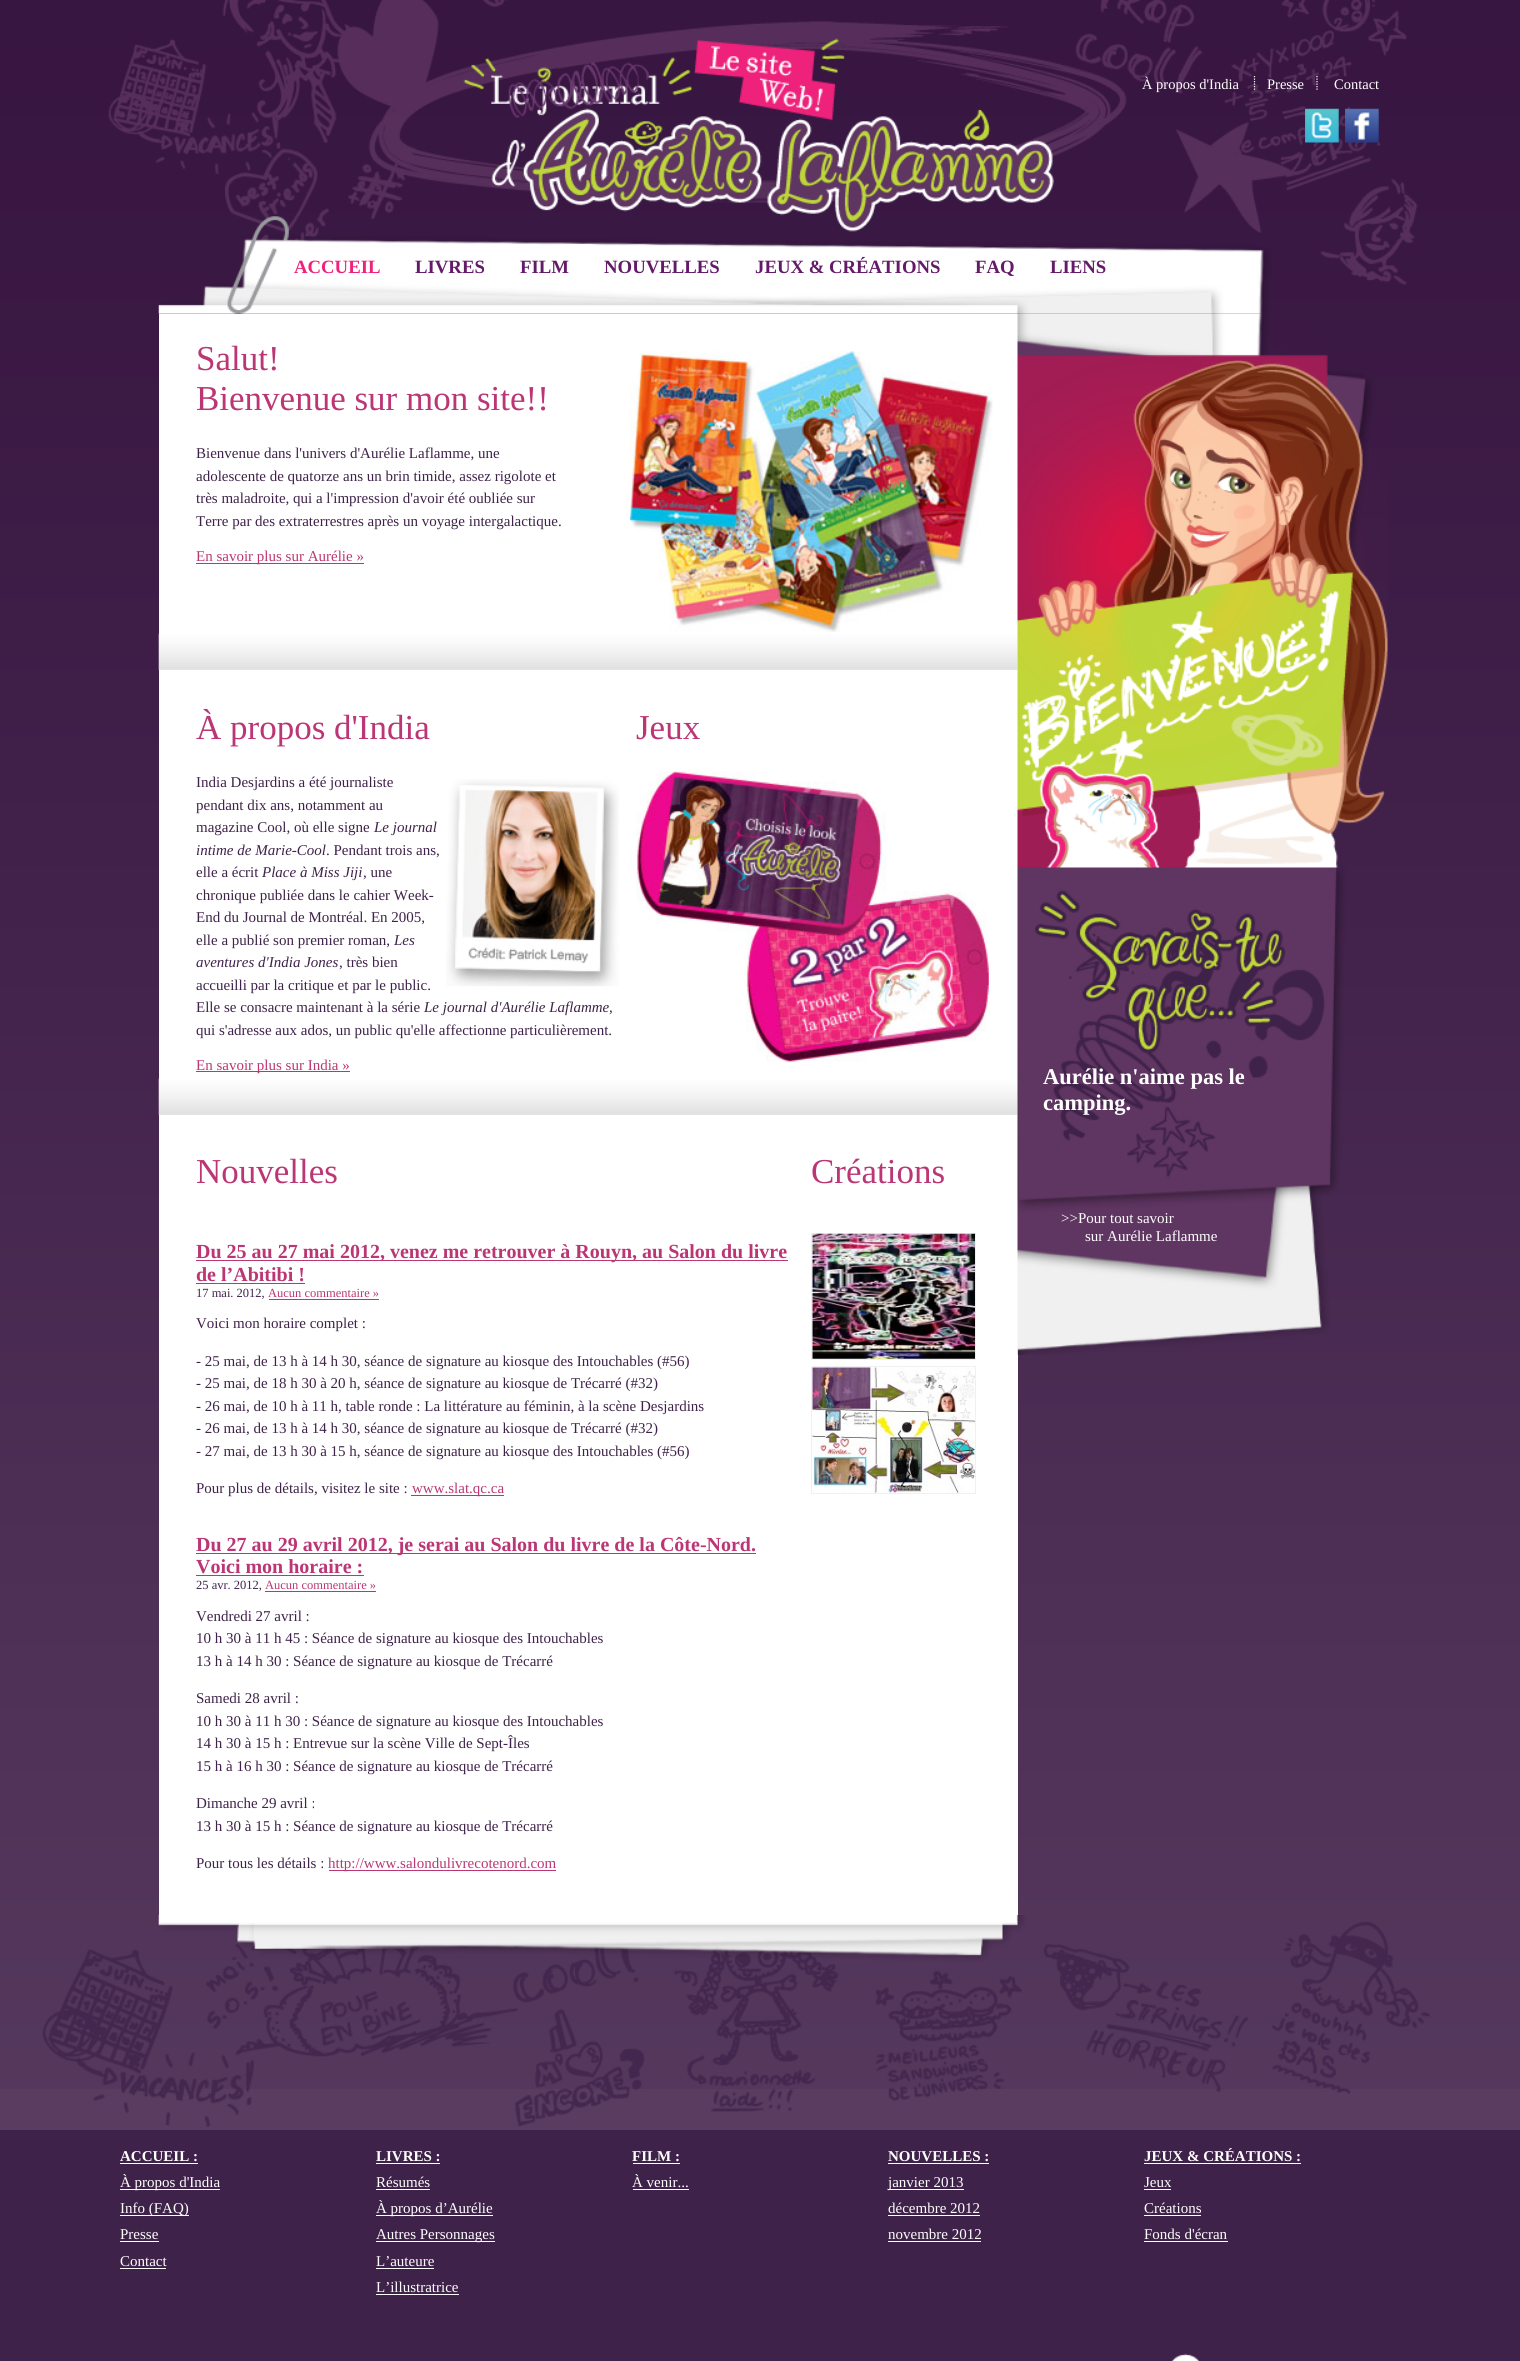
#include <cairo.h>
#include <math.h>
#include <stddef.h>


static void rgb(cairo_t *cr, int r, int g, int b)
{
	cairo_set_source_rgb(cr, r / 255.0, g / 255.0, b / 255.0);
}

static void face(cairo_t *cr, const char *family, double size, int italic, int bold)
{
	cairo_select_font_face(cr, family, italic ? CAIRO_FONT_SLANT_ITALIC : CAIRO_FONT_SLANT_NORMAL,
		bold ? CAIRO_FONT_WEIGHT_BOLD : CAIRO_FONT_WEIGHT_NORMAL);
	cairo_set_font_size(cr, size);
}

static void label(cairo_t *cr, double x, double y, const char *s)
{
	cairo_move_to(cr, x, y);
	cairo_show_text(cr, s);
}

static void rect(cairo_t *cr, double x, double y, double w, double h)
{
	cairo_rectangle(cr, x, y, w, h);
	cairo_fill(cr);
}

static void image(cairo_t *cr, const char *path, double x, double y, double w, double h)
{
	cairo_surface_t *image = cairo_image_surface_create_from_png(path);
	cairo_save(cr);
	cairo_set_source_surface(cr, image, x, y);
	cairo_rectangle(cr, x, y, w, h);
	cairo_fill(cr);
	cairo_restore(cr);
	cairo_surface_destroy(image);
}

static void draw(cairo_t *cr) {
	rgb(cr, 89, 60, 96);
	cairo_paint(cr);
	image(cr, "image0.png", 0, 0, 1520, 2089);
	image(cr, "image1.png", 108, 0, 1310, 314);
	face(cr, "Liberation Serif", 14.5, 0, 0);
	rgb(cr, 255, 255, 255);
	label(cr, 1142, 89, "À propos d'India");
	label(cr, 1267, 89, "Presse");
	cairo_new_path(cr);
	cairo_move_to(cr, 1317, 76);
	cairo_line_to(cr, 1317, 91);
	cairo_set_line_width(cr, 1.2);
	cairo_set_dash(cr, (double[]){1.25, 1.25}, 2, 0);
	cairo_stroke(cr);
	cairo_new_path(cr);
	cairo_move_to(cr, 1254.5, 76);
	cairo_line_to(cr, 1254.5, 91);
	cairo_stroke(cr);
	label(cr, 1334, 89, "Contact");
	image(cr, "image2.png", 1305, 108, 34, 35);
	image(cr, "image3.png", 1345, 108, 34, 35);
	face(cr, "Liberation Serif", 18.75, 0, 1);
	rgb(cr, 238, 34, 123);
	label(cr, 294, 273, "ACCUEIL");
	rgb(cr, 100, 26, 105);
	label(cr, 415, 273, "LIVRES");
	label(cr, 520, 273, "FILM");
	label(cr, 604, 273, "NOUVELLES");
	label(cr, 755, 273, "JEUX & CRÉATIONS");
	label(cr, 975, 273, "FAQ");
	label(cr, 1050, 273, "LIENS");
	rgb(cr, 255, 255, 255);
	rect(cr, 159, 314, 859, 1601);
	face(cr, "Liberation Serif", 35, 0, 0);
	rgb(cr, 187, 54, 117);
	label(cr, 196, 370, "Salut!");
	label(cr, 196, 410, "Bienvenue sur mon site!!");
	face(cr, "Liberation Serif", 15, 0, 0);
	rgb(cr, 63, 34, 73);
	label(cr, 196, 458, "Bienvenue dans l'univers d'Aurélie Laflamme, une");
	label(cr, 196, 481, "adolescente de quatorze ans un brin timide, assez rigolote et");
	label(cr, 196, 503, "très maladroite, qui a l'impression d'avoir été oubliée sur");
	label(cr, 196, 526, "Terre par des extraterrestres après un voyage intergalactique.");
	rgb(cr, 187, 54, 117);
	rect(cr, 196, 563, 168, 1);
	label(cr, 196, 561, "En savoir plus sur Aurélie »");
	image(cr, "image4.png", 630, 351, 363, 281);
	image(cr, "image5.png", 158, 633, 860, 37);
	face(cr, "Liberation Serif", 35, 0, 0);
	label(cr, 196, 739, "À propos d'India");
	face(cr, "Liberation Serif", 15, 0, 0);
	rgb(cr, 63, 34, 73);
	label(cr, 196, 787, "India Desjardins a été journaliste");
	image(cr, "image6.png", 446, 779, 173, 208);
	label(cr, 196, 810, "pendant dix ans, notamment au");
	label(cr, 196, 832, "magazine Cool, où elle signe");
	face(cr, "Liberation Serif", 15, 1, 0);
	label(cr, 374, 832, "Le journal");
	label(cr, 196, 855, "intime de Marie-Cool");
	face(cr, "Liberation Serif", 15, 0, 0);
	label(cr, 326, 855, ". Pendant trois ans,");
	label(cr, 196, 877, "elle a écrit");
	face(cr, "Liberation Serif", 15, 1, 0);
	label(cr, 262, 877, "Place à Miss Jiji");
	face(cr, "Liberation Serif", 15, 0, 0);
	label(cr, 363, 877, ", une");
	label(cr, 196, 900, "chronique publiée dans le cahier Week-");
	label(cr, 196, 922, "End du Journal de Montréal. En 2005,");
	label(cr, 196, 945, "elle a publié son premier roman,");
	face(cr, "Liberation Serif", 15, 1, 0);
	label(cr, 394, 945, "Les");
	label(cr, 196, 967, "aventures d'India Jones");
	face(cr, "Liberation Serif", 15, 0, 0);
	label(cr, 339, 967, ", très bien");
	label(cr, 196, 990, "accueilli par la critique et par le public.");
	label(cr, 196, 1012, "Elle se consacre maintenant à la série");
	face(cr, "Liberation Serif", 15, 1, 0);
	label(cr, 424, 1012, "Le journal d'Aurélie Laflamme");
	face(cr, "Liberation Serif", 15, 0, 0);
	label(cr, 609, 1012, ",");
	label(cr, 196, 1035, "qui s'adresse aux ados, un public qu'elle affectionne particulièrement.");
	rgb(cr, 187, 54, 117);
	rect(cr, 196, 1071, 154, 1);
	label(cr, 196, 1070, "En savoir plus sur India »");
	face(cr, "Liberation Serif", 35, 0, 0);
	label(cr, 636, 739, "Jeux");
	image(cr, "image7.png", 636, 771, 353, 292);
	image(cr, "image8.png", 158, 1078, 860, 37);
	label(cr, 196, 1183, "Nouvelles");
	rect(cr, 196, 1260, 592, 1);
	face(cr, "Liberation Serif", 20, 0, 1);
	label(cr, 196, 1258, "Du 25 au 27 mai 2012, venez me retrouver à Rouyn, au Salon du livre");
	label(cr, 196, 1281, "de l’Abitibi !");
	rect(cr, 196, 1283, 109, 1);
	face(cr, "Liberation Serif", 12.5, 0, 0);
	rgb(cr, 63, 34, 73);
	label(cr, 196, 1297, "17 mai. 2012,");
	rgb(cr, 187, 54, 117);
	label(cr, 268, 1297, "Aucun commentaire »");
	rect(cr, 269, 1299, 110, 1);
	face(cr, "Liberation Serif", 15, 0, 0);
	rgb(cr, 63, 34, 73);
	label(cr, 196, 1328, "Voici mon horaire complet :");
	label(cr, 196, 1366, "- 25 mai, de 13 h à 14 h 30, séance de signature au kiosque des Intouchables (#56)");
	label(cr, 196, 1388, "- 25 mai, de 18 h 30 à 20 h, séance de signature au kiosque de Trécarré (#32)");
	label(cr, 196, 1411, "- 26 mai, de 10 h à 11 h, table ronde : La littérature au féminin, à la scène Desjardins");
	label(cr, 196, 1433, "- 26 mai, de 13 h à 14 h 30, séance de signature au kiosque de Trécarré (#32)");
	label(cr, 196, 1456, "- 27 mai, de 13 h 30 à 15 h, séance de signature au kiosque des Intouchables (#56)");
	label(cr, 196, 1493, "Pour plus de détails, visitez le site :");
	rgb(cr, 187, 54, 117);
	rect(cr, 411, 1495, 93, 1);
	label(cr, 412, 1493, "www.slat.qc.ca");
	rect(cr, 196, 1553, 560, 1);
	face(cr, "Liberation Serif", 20, 0, 1);
	label(cr, 196, 1551, "Du 27 au 29 avril 2012, je serai au Salon du livre de la Côte-Nord.");
	label(cr, 196, 1573, "Voici mon horaire :");
	rect(cr, 196, 1575, 168, 1);
	face(cr, "Liberation Serif", 12.5, 0, 0);
	rgb(cr, 63, 34, 73);
	label(cr, 196, 1589, "25 avr. 2012,");
	rgb(cr, 187, 54, 117);
	label(cr, 265, 1589, "Aucun commentaire »");
	rect(cr, 265, 1591, 111, 1);
	face(cr, "Liberation Serif", 15, 0, 0);
	rgb(cr, 63, 34, 73);
	label(cr, 196, 1621, "Vendredi 27 avril :");
	label(cr, 196, 1643, "10 h 30 à 11 h 45 : Séance de signature au kiosque des Intouchables");
	label(cr, 196, 1666, "13 h à 14 h 30 : Séance de signature au kiosque de Trécarré");
	label(cr, 196, 1703, "Samedi 28 avril :");
	label(cr, 196, 1726, "10 h 30 à 11 h 30 : Séance de signature au kiosque des Intouchables");
	label(cr, 196, 1748, "14 h 30 à 15 h : Entrevue sur la scène Ville de Sept-Îles");
	label(cr, 196, 1771, "15 h à 16 h 30 : Séance de signature au kiosque de Trécarré");
	label(cr, 196, 1808, "Dimanche 29 avril :");
	label(cr, 196, 1831, "13 h 30 à 15 h : Séance de signature au kiosque de Trécarré");
	label(cr, 196, 1868, "Pour tous les détails :");
	rgb(cr, 187, 54, 117);
	rect(cr, 329, 1870, 227, 1);
	label(cr, 328, 1868, "http://www.salondulivrecotenord.com");
	face(cr, "Liberation Serif", 35, 0, 0);
	label(cr, 811, 1183, "Créations");
	cairo_rectangle(cr, 811.5, 1233.5, 164, 126);
	rgb(cr, 239, 240, 241);
	cairo_set_line_width(cr, 1);
	cairo_set_dash(cr, NULL, 0, 0);
	cairo_stroke(cr);
	image(cr, "image9.png", 812, 1233, 163, 126);
	cairo_rectangle(cr, 811.5, 1366.5, 164, 127);
	cairo_stroke(cr);
	image(cr, "image10.png", 812, 1367, 163, 126);
	image(cr, "image11.png", 1017, 313, 371, 1042);
	face(cr, "Liberation Serif", 22.5, 0, 1);
	rgb(cr, 255, 255, 255);
	label(cr, 1043, 1084, "Aurélie n'aime pas le");
	label(cr, 1043, 1110, "camping.");
	face(cr, "Liberation Serif", 15, 0, 0);
	label(cr, 1061, 1223, ">>Pour tout savoir");
	label(cr, 1085, 1241, "sur Aurélie Laflamme");
	image(cr, "image12.png", 42, 1915, 1388, 212);
	rgb(cr, 63, 34, 73);
	rect(cr, 0, 2130, 1520, 231);
	face(cr, "Liberation Serif", 15, 0, 1);
	rgb(cr, 255, 255, 255);
	label(cr, 120, 2161, "ACCUEIL :");
	rect(cr, 120, 2163, 78, 1);
	rect(cr, 120, 2189, 100, 1);
	face(cr, "Liberation Serif", 15, 0, 0);
	label(cr, 120, 2187, "À propos d'India");
	rect(cr, 120, 2215, 69, 1);
	label(cr, 120, 2213, "Info (FAQ)");
	label(cr, 120, 2239, "Presse");
	rect(cr, 120, 2241, 39, 1);
	label(cr, 120, 2266, "Contact");
	rect(cr, 120, 2268, 46, 1);
	face(cr, "Liberation Serif", 15, 0, 1);
	label(cr, 376, 2161, "LIVRES :");
	rect(cr, 376, 2163, 64, 1);
	face(cr, "Liberation Serif", 15, 0, 0);
	label(cr, 376, 2187, "Résumés");
	rect(cr, 376, 2189, 54, 1);
	rect(cr, 376, 2215, 117, 1);
	label(cr, 376, 2213, "À propos d’Aurélie");
	rect(cr, 376, 2241, 119, 1);
	label(cr, 376, 2239, "Autres Personnages");
	label(cr, 376, 2266, "L’auteure");
	rect(cr, 376, 2268, 58, 1);
	label(cr, 376, 2292, "L’illustratrice");
	rect(cr, 376, 2294, 83, 1);
	face(cr, "Liberation Serif", 15, 0, 1);
	label(cr, 632, 2161, "FILM :");
	rect(cr, 633, 2163, 47, 1);
	face(cr, "Liberation Serif", 15, 0, 0);
	label(cr, 632, 2187, "À venir...");
	rect(cr, 633, 2189, 56, 1);
	face(cr, "Liberation Serif", 15, 0, 1);
	label(cr, 888, 2161, "NOUVELLES :");
	rect(cr, 888, 2163, 101, 1);
	rect(cr, 888, 2189, 76, 1);
	face(cr, "Liberation Serif", 15, 0, 0);
	label(cr, 888, 2187, "janvier 2013");
	label(cr, 888, 2213, "décembre 2012");
	rect(cr, 888, 2215, 92, 1);
	label(cr, 888, 2239, "novembre 2012");
	rect(cr, 888, 2241, 93, 1);
	face(cr, "Liberation Serif", 15, 0, 1);
	label(cr, 1144, 2161, "JEUX & CRÉATIONS :");
	rect(cr, 1144, 2163, 157, 1);
	face(cr, "Liberation Serif", 15, 0, 0);
	label(cr, 1144, 2187, "Jeux");
	rect(cr, 1144, 2189, 27, 1);
	label(cr, 1144, 2213, "Créations");
	rect(cr, 1144, 2215, 57, 1);
	label(cr, 1144, 2239, "Fonds d'écran");
	rect(cr, 1144, 2241, 84, 1);
	image(cr, "image13.png", 1171, 2353, 28, 8);
}

int main(void) {
	cairo_surface_t *surface = cairo_image_surface_create(CAIRO_FORMAT_RGB24, 1520, 2361);
	cairo_t *cr = cairo_create(surface);
	cairo_font_options_t *options = cairo_font_options_create();
	cairo_font_options_set_hint_metrics(options, CAIRO_HINT_METRICS_OFF);
	cairo_font_options_set_hint_style(options, CAIRO_HINT_STYLE_NONE);
	cairo_set_font_options(cr, options);
	cairo_set_miter_limit(cr, 4);
	draw(cr);
	cairo_surface_write_to_png(surface, "render.png");
	cairo_font_options_destroy(options);
	cairo_destroy(cr);
	cairo_surface_destroy(surface);
	return 0;
}
